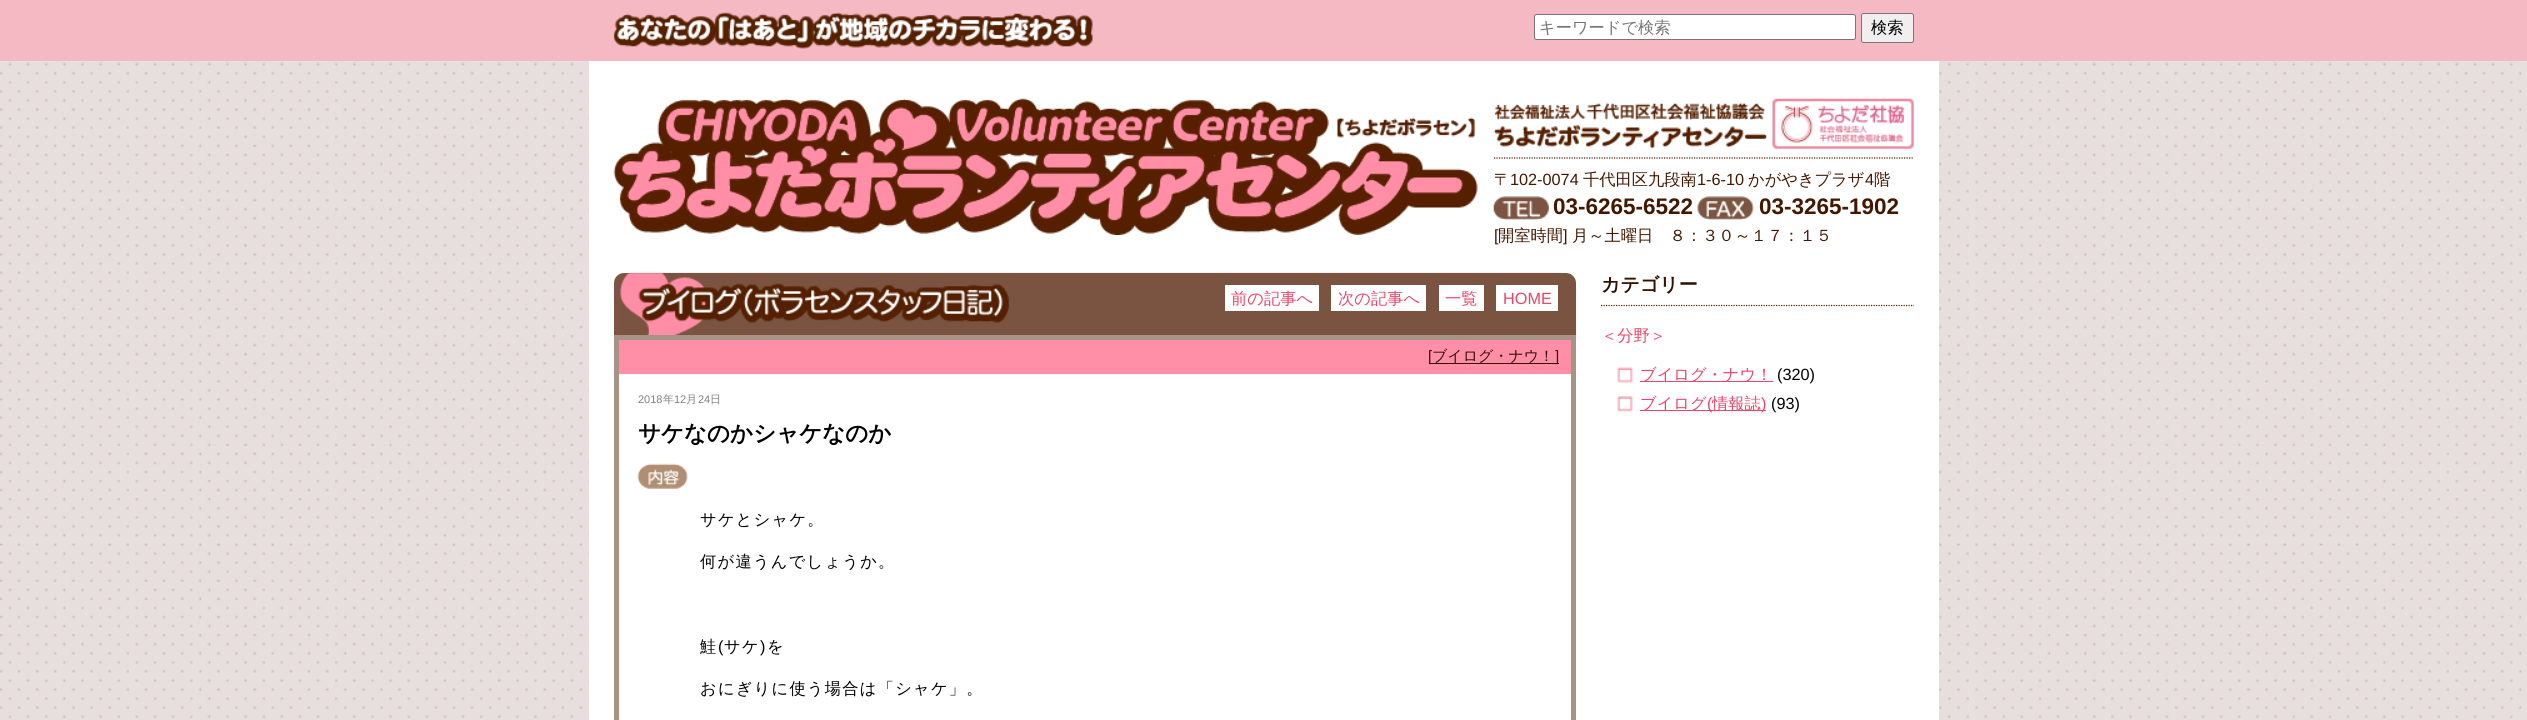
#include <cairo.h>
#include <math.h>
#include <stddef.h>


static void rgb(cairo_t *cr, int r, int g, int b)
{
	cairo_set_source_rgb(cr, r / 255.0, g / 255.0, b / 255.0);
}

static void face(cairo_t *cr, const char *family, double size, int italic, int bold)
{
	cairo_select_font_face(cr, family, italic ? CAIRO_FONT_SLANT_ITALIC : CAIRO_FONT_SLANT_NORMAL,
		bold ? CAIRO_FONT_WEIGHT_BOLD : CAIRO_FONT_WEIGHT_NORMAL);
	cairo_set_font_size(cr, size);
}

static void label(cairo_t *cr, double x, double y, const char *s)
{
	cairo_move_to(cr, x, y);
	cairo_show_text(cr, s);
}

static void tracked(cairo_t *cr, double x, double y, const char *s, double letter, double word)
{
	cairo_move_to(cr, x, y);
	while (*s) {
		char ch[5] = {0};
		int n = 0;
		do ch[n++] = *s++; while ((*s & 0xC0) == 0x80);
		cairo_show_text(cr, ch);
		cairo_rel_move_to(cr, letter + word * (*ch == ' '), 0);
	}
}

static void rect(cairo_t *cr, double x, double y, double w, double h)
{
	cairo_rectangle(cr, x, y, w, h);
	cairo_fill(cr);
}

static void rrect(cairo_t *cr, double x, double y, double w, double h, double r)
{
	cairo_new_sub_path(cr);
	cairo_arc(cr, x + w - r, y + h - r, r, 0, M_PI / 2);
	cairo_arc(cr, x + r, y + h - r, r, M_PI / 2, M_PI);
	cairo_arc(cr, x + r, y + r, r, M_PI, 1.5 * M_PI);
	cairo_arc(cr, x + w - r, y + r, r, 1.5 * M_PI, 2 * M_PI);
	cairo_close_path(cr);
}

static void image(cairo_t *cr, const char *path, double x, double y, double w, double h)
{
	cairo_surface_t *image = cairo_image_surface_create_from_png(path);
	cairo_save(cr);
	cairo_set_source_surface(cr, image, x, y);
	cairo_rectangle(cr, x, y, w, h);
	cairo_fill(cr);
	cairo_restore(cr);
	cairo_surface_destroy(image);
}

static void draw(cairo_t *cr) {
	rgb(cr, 255, 255, 255);
	cairo_paint(cr);
	image(cr, "image0.png", 0, 61, 2527, 659);
	rgb(cr, 244, 185, 194);
	rect(cr, 0, 0, 2527, 61);
	image(cr, "image1.png", 613, 12, 480, 37);
	rgb(cr, 255, 255, 255);
	rrect(cr, 1534.5, 14.5, 321, 25, 2);
	cairo_fill_preserve(cr);
	rgb(cr, 118, 118, 118);
	cairo_set_line_width(cr, 1);
	cairo_stroke(cr);
	face(cr, "WenQuanYi Zen Hei Medium", 16.25, 0, 0);
	rgb(cr, 117, 117, 117);
	label(cr, 1539, 33, "キーワードで検索");
	rgb(cr, 239, 239, 239);
	rrect(cr, 1861.5, 13.5, 52, 29, 2);
	cairo_fill_preserve(cr);
	rgb(cr, 118, 118, 118);
	cairo_stroke(cr);
	rgb(cr, 0, 0, 0);
	label(cr, 1871, 33, "検索");
	rgb(cr, 255, 255, 255);
	rect(cr, 589, 61, 1350, 659);
	image(cr, "image2.png", 613, 98, 865, 137);
	cairo_new_path(cr);
	cairo_move_to(cr, 1494, 158);
	cairo_line_to(cr, 1914, 158);
	rgb(cr, 85, 31, 0);
	cairo_set_line_width(cr, 1.2);
	cairo_set_dash(cr, (double[]){1.25, 1.25}, 2, 0);
	cairo_stroke(cr);
	image(cr, "image3.png", 1493, 102, 274, 47);
	image(cr, "image4.png", 1772, 98, 142, 51);
	rgb(cr, 67, 23, 0);
	label(cr, 1494, 185, "〒");
	face(cr, "Liberation Sans", 16.25, 0, 0);
	label(cr, 1510, 185, "102-0074");
	face(cr, "WenQuanYi Zen Hei Medium", 16.25, 0, 0);
	label(cr, 1583, 185, "千代田区九段南");
	face(cr, "Liberation Sans", 16.25, 0, 0);
	label(cr, 1697, 185, "1-6-10");
	face(cr, "WenQuanYi Zen Hei Medium", 16.25, 0, 0);
	label(cr, 1748, 185, "かがやきプラザ");
	face(cr, "Liberation Sans", 16.25, 0, 0);
	label(cr, 1865, 185, "4");
	face(cr, "WenQuanYi Zen Hei Medium", 16.25, 0, 0);
	label(cr, 1874, 185, "階");
	image(cr, "image5.png", 1493, 196, 56, 24);
	face(cr, "Liberation Sans", 22.5, 0, 1);
	label(cr, 1553, 214, "03-6265-6522");
	image(cr, "image6.png", 1697, 196, 57, 24);
	label(cr, 1759, 214, "03-3265-1902");
	face(cr, "Liberation Sans", 16.25, 0, 0);
	label(cr, 1494, 241, "[");
	face(cr, "WenQuanYi Zen Hei Medium", 16.25, 0, 0);
	label(cr, 1498, 241, "開室時間");
	face(cr, "Liberation Sans", 16.25, 0, 0);
	label(cr, 1563, 241, "]");
	face(cr, "WenQuanYi Zen Hei Medium", 16.25, 0, 0);
	label(cr, 1572, 241, "月～土曜日　８：３０～１７：１５");
	rgb(cr, 123, 85, 65);
	cairo_new_path(cr);
	cairo_move_to(cr, 624, 273);
	cairo_line_to(cr, 1566, 273);
	cairo_curve_to(cr, 1571.5, 273, 1576, 277.5, 1576, 283);
	cairo_line_to(cr, 1576, 340);
	cairo_line_to(cr, 614, 340);
	cairo_line_to(cr, 614, 283);
	cairo_curve_to(cr, 614, 277.5, 618.5, 273, 624, 273);
	cairo_close_path(cr);
	cairo_fill(cr);
	rgb(cr, 167, 146, 134);
	rect(cr, 614, 335, 962, 5);
	image(cr, "image7.png", 620, 272, 957, 63);
	rgb(cr, 255, 255, 255);
	rect(cr, 1225, 285, 94, 26);
	rgb(cr, 235, 68, 102);
	label(cr, 1231, 304, "前の記事へ");
	rgb(cr, 255, 255, 255);
	rect(cr, 1331, 285, 95, 26);
	rgb(cr, 235, 68, 102);
	label(cr, 1338, 304, "次の記事へ");
	rgb(cr, 255, 255, 255);
	rect(cr, 1439, 285, 45, 26);
	rgb(cr, 235, 68, 102);
	label(cr, 1445, 304, "一覧");
	rgb(cr, 255, 255, 255);
	rect(cr, 1496, 285, 62, 26);
	face(cr, "Liberation Sans", 16.25, 0, 0);
	rgb(cr, 235, 68, 102);
	label(cr, 1503, 304, "HOME");
	rgb(cr, 167, 146, 134);
	rect(cr, 1571, 340, 5, 380);
	rect(cr, 614, 340, 5, 380);
	rgb(cr, 255, 142, 166);
	rect(cr, 619, 340, 952, 34);
	rgb(cr, 51, 17, 0);
	rect(cr, 1429, 363, 130, 1);
	face(cr, "Liberation Sans", 15, 0, 0);
	label(cr, 1428, 361, "[");
	face(cr, "WenQuanYi Zen Hei Medium", 15, 0, 0);
	label(cr, 1432, 361, "ブイログ・ナウ！");
	face(cr, "Liberation Sans", 15, 0, 0);
	label(cr, 1555, 361, "]");
	face(cr, "Liberation Sans", 11, 0, 0);
	rgb(cr, 127, 127, 127);
	label(cr, 638, 403, "2018");
	face(cr, "WenQuanYi Zen Hei Medium", 11, 0, 0);
	label(cr, 663, 403, "年");
	face(cr, "Liberation Sans", 11, 0, 0);
	label(cr, 674, 403, "12");
	face(cr, "WenQuanYi Zen Hei Medium", 11, 0, 0);
	label(cr, 686, 403, "月");
	face(cr, "Liberation Sans", 11, 0, 0);
	label(cr, 698, 403, "24");
	face(cr, "WenQuanYi Zen Hei Medium", 11, 0, 0);
	label(cr, 710, 403, "日");
	face(cr, "WenQuanYi Zen Hei", 22.5, 0, 1);
	rgb(cr, 0, 0, 0);
	label(cr, 638, 441, "サケなのかシャケなのか");
	image(cr, "image8.png", 637, 463, 51, 26);
	face(cr, "WenQuanYi Zen Hei Medium", 16.25, 0, 0);
	tracked(cr, 700, 525, "サケとシャケ。", 1.25, 0);
	tracked(cr, 700, 567, "何が違うんでしょうか。", 1.25, 0);
	tracked(cr, 700, 652, "鮭", 1.25, 0);
	face(cr, "Liberation Sans", 16.25, 0, 0);
	tracked(cr, 718, 652, "(", 1.25, 0);
	face(cr, "WenQuanYi Zen Hei Medium", 16.25, 0, 0);
	tracked(cr, 724, 652, "サケ", 1.25, 0);
	face(cr, "Liberation Sans", 16.25, 0, 0);
	tracked(cr, 760, 652, ")", 1.25, 0);
	face(cr, "WenQuanYi Zen Hei Medium", 16.25, 0, 0);
	tracked(cr, 767, 652, "を", 1.25, 0);
	tracked(cr, 700, 694, "おにぎりに使う場合は「シャケ」。", 1.25, 0);
	cairo_new_path(cr);
	cairo_move_to(cr, 1601, 305.5);
	cairo_line_to(cr, 1914, 305.5);
	rgb(cr, 85, 31, 0);
	cairo_stroke(cr);
	face(cr, "WenQuanYi Zen Hei", 19, 0, 1);
	rgb(cr, 51, 17, 0);
	label(cr, 1601, 291, "カテゴリー");
	face(cr, "WenQuanYi Zen Hei Medium", 16.25, 0, 0);
	rgb(cr, 235, 68, 102);
	label(cr, 1601, 341, "＜分野＞");
	image(cr, "image9.png", 1617, 367, 16, 16);
	rect(cr, 1640, 381, 133, 1);
	label(cr, 1640, 380, "ブイログ・ナウ！");
	face(cr, "Liberation Sans", 16.25, 0, 0);
	rgb(cr, 0, 0, 0);
	label(cr, 1777, 380, "(320)");
	image(cr, "image10.png", 1617, 396, 16, 16);
	rgb(cr, 235, 68, 102);
	rect(cr, 1640, 410, 126, 1);
	face(cr, "WenQuanYi Zen Hei Medium", 16.25, 0, 0);
	label(cr, 1640, 409, "ブイログ");
	face(cr, "Liberation Sans", 16.25, 0, 0);
	label(cr, 1707, 409, "(");
	face(cr, "WenQuanYi Zen Hei Medium", 16.25, 0, 0);
	label(cr, 1712, 409, "情報誌");
	face(cr, "Liberation Sans", 16.25, 0, 0);
	label(cr, 1761, 409, ")");
	rgb(cr, 0, 0, 0);
	label(cr, 1771, 409, "(93)");
}

int main(void) {
	cairo_surface_t *surface = cairo_image_surface_create(CAIRO_FORMAT_RGB24, 2527, 720);
	cairo_t *cr = cairo_create(surface);
	cairo_font_options_t *options = cairo_font_options_create();
	cairo_font_options_set_hint_metrics(options, CAIRO_HINT_METRICS_OFF);
	cairo_font_options_set_hint_style(options, CAIRO_HINT_STYLE_NONE);
	cairo_set_font_options(cr, options);
	cairo_set_miter_limit(cr, 4);
	draw(cr);
	cairo_surface_write_to_png(surface, "render.png");
	cairo_font_options_destroy(options);
	cairo_destroy(cr);
	cairo_surface_destroy(surface);
	return 0;
}
